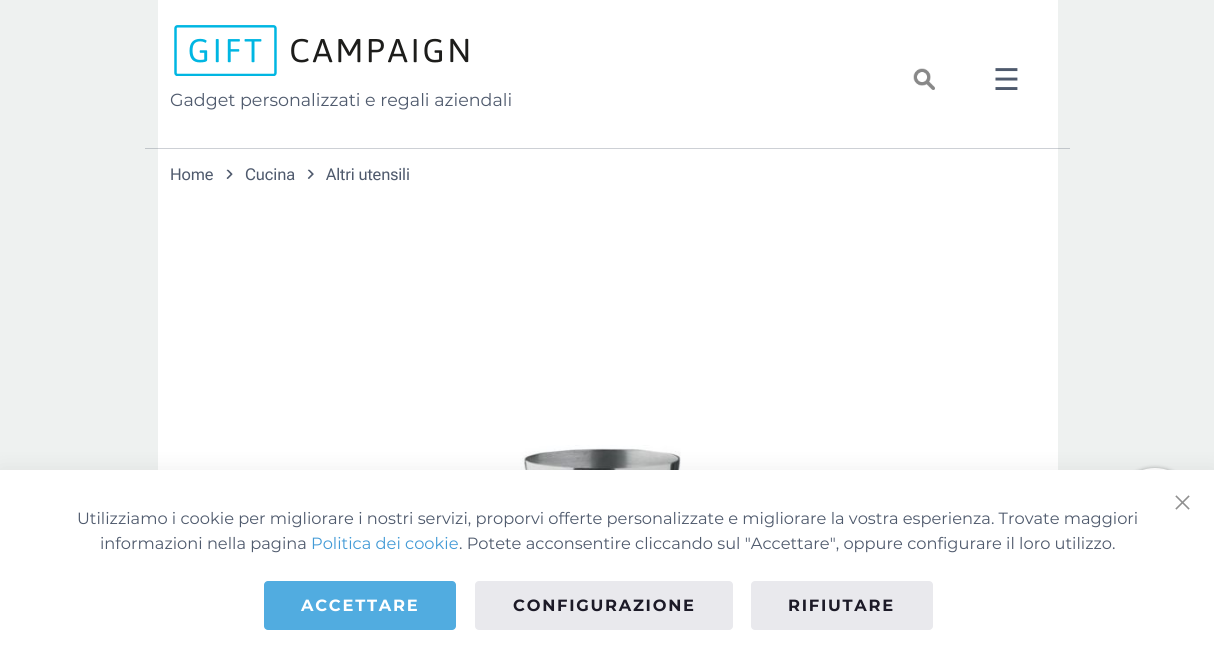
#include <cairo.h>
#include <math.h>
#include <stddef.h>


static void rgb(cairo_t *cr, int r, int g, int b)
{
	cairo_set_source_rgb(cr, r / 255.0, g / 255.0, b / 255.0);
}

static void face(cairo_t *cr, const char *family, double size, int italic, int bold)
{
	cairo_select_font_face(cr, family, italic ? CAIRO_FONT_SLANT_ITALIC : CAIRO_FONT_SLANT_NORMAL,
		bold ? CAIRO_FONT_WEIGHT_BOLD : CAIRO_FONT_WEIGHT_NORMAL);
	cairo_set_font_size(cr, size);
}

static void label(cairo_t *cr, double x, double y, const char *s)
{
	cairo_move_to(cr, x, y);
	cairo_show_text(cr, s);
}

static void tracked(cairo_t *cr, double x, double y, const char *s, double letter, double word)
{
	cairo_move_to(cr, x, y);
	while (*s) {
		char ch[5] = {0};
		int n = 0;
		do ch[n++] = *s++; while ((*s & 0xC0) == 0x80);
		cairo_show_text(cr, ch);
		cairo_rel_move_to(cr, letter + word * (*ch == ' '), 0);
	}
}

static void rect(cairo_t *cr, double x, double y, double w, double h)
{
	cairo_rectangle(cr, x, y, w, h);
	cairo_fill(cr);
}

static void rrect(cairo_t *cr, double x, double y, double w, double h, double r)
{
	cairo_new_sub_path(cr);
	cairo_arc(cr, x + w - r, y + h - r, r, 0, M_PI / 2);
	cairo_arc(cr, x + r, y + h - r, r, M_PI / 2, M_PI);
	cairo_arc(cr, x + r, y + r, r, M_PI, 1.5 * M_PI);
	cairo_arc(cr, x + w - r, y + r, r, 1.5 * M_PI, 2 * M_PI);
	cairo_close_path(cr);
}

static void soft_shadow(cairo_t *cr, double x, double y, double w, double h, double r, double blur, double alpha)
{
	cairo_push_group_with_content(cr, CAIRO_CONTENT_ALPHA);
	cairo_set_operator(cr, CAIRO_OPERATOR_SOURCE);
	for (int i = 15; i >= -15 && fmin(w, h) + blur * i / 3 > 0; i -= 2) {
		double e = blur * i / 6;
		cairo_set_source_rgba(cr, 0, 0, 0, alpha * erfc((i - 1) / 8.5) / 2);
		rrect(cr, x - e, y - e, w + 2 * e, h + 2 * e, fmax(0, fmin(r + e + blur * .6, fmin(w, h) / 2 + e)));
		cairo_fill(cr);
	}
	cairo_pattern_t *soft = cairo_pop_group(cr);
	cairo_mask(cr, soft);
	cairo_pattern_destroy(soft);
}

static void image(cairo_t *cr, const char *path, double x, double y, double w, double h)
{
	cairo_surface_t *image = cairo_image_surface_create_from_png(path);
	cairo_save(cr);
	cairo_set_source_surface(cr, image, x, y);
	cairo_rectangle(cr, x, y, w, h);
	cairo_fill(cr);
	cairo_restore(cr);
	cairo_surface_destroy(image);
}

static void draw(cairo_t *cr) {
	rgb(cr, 238, 241, 240);
	cairo_paint(cr);
	rgb(cr, 193, 198, 202);
	rect(cr, 145, 148, 925, 1);
	rgb(cr, 255, 255, 255);
	rect(cr, 158, 0, 900, 470);
	rgb(cr, 205, 208, 213);
	rect(cr, 158, 148, 900, 1);
	image(cr, "image0.png", 913, 68, 22, 22);
	face(cr, "DejaVu Sans", 30, 0, 0);
	rgb(cr, 79, 90, 109);
	label(cr, 993, 90, "☰");
	image(cr, "image1.png", 174, 25, 295, 51);
	face(cr, "Montserrat", 17.5, 0, 0);
	label(cr, 170, 106, "Gadget personalizzati e regali aziendali");
	face(cr, "Roboto Flex", 16.25, 0, 0);
	tracked(cr, 170, 180, "Home", -0.1, 0);
	image(cr, "image2.png", 226, 169, 7, 10);
	tracked(cr, 245, 180, "Cucina", -0.1, 0);
	image(cr, "image3.png", 307, 169, 7, 10);
	tracked(cr, 326, 180, "Altri utensili", -0.1, 0);
	image(cr, "image4.png", 520, 445, 161, 25);
	rgb(cr, 0, 0, 0);
	soft_shadow(cr, 1115, 468, 80, 80, 40, 2, 0.3);
	rgb(cr, 255, 255, 255);
	cairo_arc(cr, 1155, 508, 40, 0, 2 * M_PI);
	cairo_fill(cr);
	rgb(cr, 0, 0, 0);
	soft_shadow(cr, 0, 468, 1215, 197, 0, 11, 0.06);
	rgb(cr, 255, 255, 255);
	rect(cr, 0, 470, 1214, 197);
	image(cr, "image5.png", 1175, 495, 15, 15);
	face(cr, "Montserrat", 16.25, 0, 0);
	rgb(cr, 79, 90, 109);
	label(cr, 77, 524, "Utilizziamo i cookie per migliorare i nostri servizi, proporvi offerte personalizzate e migliorare la vostra esperienza. Trovate maggiori");
	label(cr, 100, 549, "informazioni nella pagina");
	rgb(cr, 66, 154, 214);
	label(cr, 311, 549, "Politica dei cookie");
	rgb(cr, 79, 90, 109);
	label(cr, 459, 549, ". Potete acconsentire cliccando sul \"Accettare\", oppure configurare il loro utilizzo.");
	rgb(cr, 81, 172, 224);
	rrect(cr, 264, 581, 192, 49, 4);
	cairo_fill(cr);
	face(cr, "Montserrat", 16.25, 0, 1);
	rgb(cr, 255, 255, 255);
	tracked(cr, 301, 611, "ACCETTARE", 1.75, 0);
	rgb(cr, 233, 233, 237);
	rrect(cr, 475, 581, 258, 49, 4);
	cairo_fill(cr);
	rgb(cr, 28, 26, 39);
	tracked(cr, 513, 611, "CONFIGURAZIONE", 1.75, 0);
	rgb(cr, 233, 233, 237);
	rrect(cr, 751, 581, 182, 49, 4);
	cairo_fill(cr);
	rgb(cr, 28, 26, 39);
	tracked(cr, 788, 611, "RIFIUTARE", 1.75, 0);
}

int main(void) {
	cairo_surface_t *surface = cairo_image_surface_create(CAIRO_FORMAT_RGB24, 1214, 667);
	cairo_t *cr = cairo_create(surface);
	cairo_font_options_t *options = cairo_font_options_create();
	cairo_font_options_set_hint_metrics(options, CAIRO_HINT_METRICS_OFF);
	cairo_font_options_set_hint_style(options, CAIRO_HINT_STYLE_NONE);
	cairo_set_font_options(cr, options);
	cairo_set_miter_limit(cr, 4);
	draw(cr);
	cairo_surface_write_to_png(surface, "render.png");
	cairo_font_options_destroy(options);
	cairo_destroy(cr);
	cairo_surface_destroy(surface);
	return 0;
}
